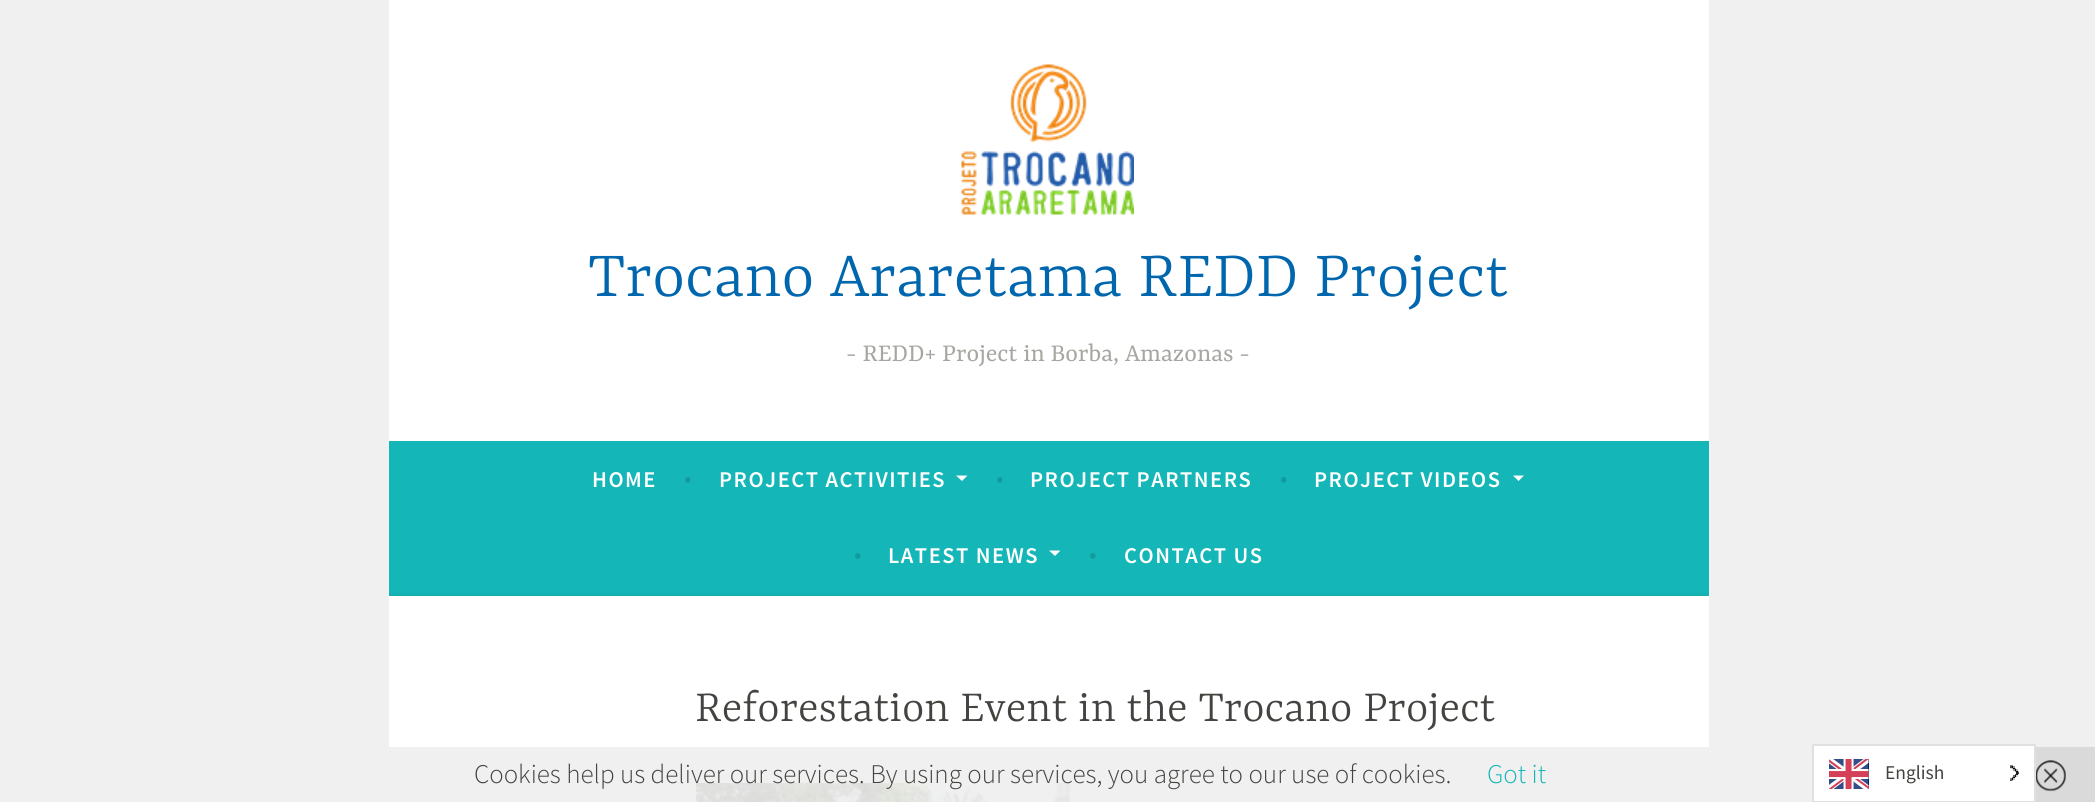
#include <cairo.h>
#include <math.h>
#include <stddef.h>


static void rgb(cairo_t *cr, int r, int g, int b)
{
	cairo_set_source_rgb(cr, r / 255.0, g / 255.0, b / 255.0);
}

static void face(cairo_t *cr, const char *family, double size, int italic, int bold)
{
	cairo_select_font_face(cr, family, italic ? CAIRO_FONT_SLANT_ITALIC : CAIRO_FONT_SLANT_NORMAL,
		bold ? CAIRO_FONT_WEIGHT_BOLD : CAIRO_FONT_WEIGHT_NORMAL);
	cairo_set_font_size(cr, size);
}

static void label(cairo_t *cr, double x, double y, const char *s)
{
	cairo_move_to(cr, x, y);
	cairo_show_text(cr, s);
}

static void tracked(cairo_t *cr, double x, double y, const char *s, double letter, double word)
{
	cairo_move_to(cr, x, y);
	while (*s) {
		char ch[5] = {0};
		int n = 0;
		do ch[n++] = *s++; while ((*s & 0xC0) == 0x80);
		cairo_show_text(cr, ch);
		cairo_rel_move_to(cr, letter + word * (*ch == ' '), 0);
	}
}

static void rect(cairo_t *cr, double x, double y, double w, double h)
{
	cairo_rectangle(cr, x, y, w, h);
	cairo_fill(cr);
}

static void image(cairo_t *cr, const char *path, double x, double y, double w, double h)
{
	cairo_surface_t *image = cairo_image_surface_create_from_png(path);
	cairo_save(cr);
	cairo_set_source_surface(cr, image, x, y);
	cairo_rectangle(cr, x, y, w, h);
	cairo_fill(cr);
	cairo_restore(cr);
	cairo_surface_destroy(image);
}

static void draw(cairo_t *cr) {
	rgb(cr, 240, 240, 240);
	cairo_paint(cr);
	rgb(cr, 255, 255, 255);
	rect(cr, 389, 0, 1320, 441);
	image(cr, "image0.png", 961, 64, 173, 151);
	face(cr, "Yrsa Light", 70.5, 0, 0);
	rgb(cr, 0, 102, 174);
	label(cr, 588, 296, "Trocano Araretama REDD Project");
	face(cr, "Yrsa", 27, 0, 0);
	rgb(cr, 168, 166, 161);
	label(cr, 846, 361, "- REDD+ Project in Borba, Amazonas -");
	rgb(cr, 21, 182, 184);
	rect(cr, 389, 441, 1320, 152);
	rgb(cr, 20, 177, 178);
	rect(cr, 389, 593, 1320, 3);
	face(cr, "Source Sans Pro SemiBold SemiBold", 22.5, 0, 0);
	rgb(cr, 255, 255, 255);
	tracked(cr, 592, 487, "HOME", 1.5, 0);
	face(cr, "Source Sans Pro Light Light", 27, 0, 0);
	rgb(cr, 18, 155, 156);
	label(cr, 684, 487, "•");
	face(cr, "Source Sans Pro SemiBold SemiBold", 22.5, 0, 0);
	rgb(cr, 255, 255, 255);
	tracked(cr, 719, 487, "PROJECT ACTIVITIES", 1.5, 0);
	cairo_new_path(cr);
	cairo_move_to(cr, 956, 475.5);
	cairo_line_to(cr, 967.5, 475.5);
	cairo_line_to(cr, 962, 481);
	cairo_close_path(cr);
	cairo_fill(cr);
	face(cr, "Source Sans Pro Light Light", 27, 0, 0);
	rgb(cr, 18, 155, 156);
	label(cr, 996, 487, "•");
	face(cr, "Source Sans Pro SemiBold SemiBold", 22.5, 0, 0);
	rgb(cr, 255, 255, 255);
	tracked(cr, 1030, 487, "PROJECT PARTNERS", 1.5, 0);
	face(cr, "Source Sans Pro Light Light", 27, 0, 0);
	rgb(cr, 18, 155, 156);
	label(cr, 1280, 487, "•");
	face(cr, "Source Sans Pro SemiBold SemiBold", 22.5, 0, 0);
	rgb(cr, 255, 255, 255);
	tracked(cr, 1314, 487, "PROJECT VIDEOS", 1.5, 0);
	cairo_new_path(cr);
	cairo_move_to(cr, 1513, 475.5);
	cairo_line_to(cr, 1524, 475.5);
	cairo_line_to(cr, 1518.5, 481);
	cairo_close_path(cr);
	cairo_fill(cr);
	face(cr, "Source Sans Pro Light Light", 27, 0, 0);
	rgb(cr, 18, 155, 156);
	label(cr, 854, 563, "•");
	face(cr, "Source Sans Pro SemiBold SemiBold", 22.5, 0, 0);
	rgb(cr, 255, 255, 255);
	tracked(cr, 888, 563, "LATEST NEWS", 1.5, 0);
	cairo_new_path(cr);
	cairo_move_to(cr, 1049, 550.5);
	cairo_line_to(cr, 1060.5, 550.5);
	cairo_line_to(cr, 1055, 556);
	cairo_close_path(cr);
	cairo_fill(cr);
	face(cr, "Source Sans Pro Light Light", 27, 0, 0);
	rgb(cr, 18, 155, 156);
	label(cr, 1089, 563, "•");
	face(cr, "Source Sans Pro SemiBold SemiBold", 22.5, 0, 0);
	rgb(cr, 255, 255, 255);
	tracked(cr, 1124, 563, "CONTACT US", 1.5, 0);
	rect(cr, 389, 596, 1320, 151);
	face(cr, "Yrsa Light", 48, 0, 0);
	rgb(cr, 68, 67, 64);
	label(cr, 695, 721, "Reforestation Event in the Trocano Project");
	image(cr, "image1.png", 696, 783, 384, 19);
	face(cr, "Source Sans Pro Light Light", 27, 0, 0);
	label(cr, 474, 783, "Cookies help us deliver our services. By using our services, you agree to our use of cookies.");
	rgb(cr, 21, 182, 184);
	label(cr, 1487, 783, "Got it");
	rgb(cr, 218, 218, 218);
	rect(cr, 2036, 747, 59, 55);
	image(cr, "image2.png", 2036, 760, 30, 32);
	rgb(cr, 255, 255, 255);
	cairo_rectangle(cr, 1813, 745, 222, 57);
	cairo_fill_preserve(cr);
	rgb(cr, 224, 224, 224);
	cairo_stroke(cr);
	image(cr, "image3.png", 1829, 759, 40, 30);
	face(cr, "Source Sans Pro", 19.5, 0, 0);
	rgb(cr, 68, 67, 64);
	label(cr, 1885, 779, "English");
	image(cr, "image4.png", 2010, 765, 9, 16);
}

int main(void) {
	cairo_surface_t *surface = cairo_image_surface_create(CAIRO_FORMAT_RGB24, 2095, 802);
	cairo_t *cr = cairo_create(surface);
	cairo_font_options_t *options = cairo_font_options_create();
	cairo_font_options_set_hint_metrics(options, CAIRO_HINT_METRICS_OFF);
	cairo_font_options_set_hint_style(options, CAIRO_HINT_STYLE_NONE);
	cairo_set_font_options(cr, options);
	cairo_set_miter_limit(cr, 4);
	draw(cr);
	cairo_surface_write_to_png(surface, "render.png");
	cairo_font_options_destroy(options);
	cairo_destroy(cr);
	cairo_surface_destroy(surface);
	return 0;
}
